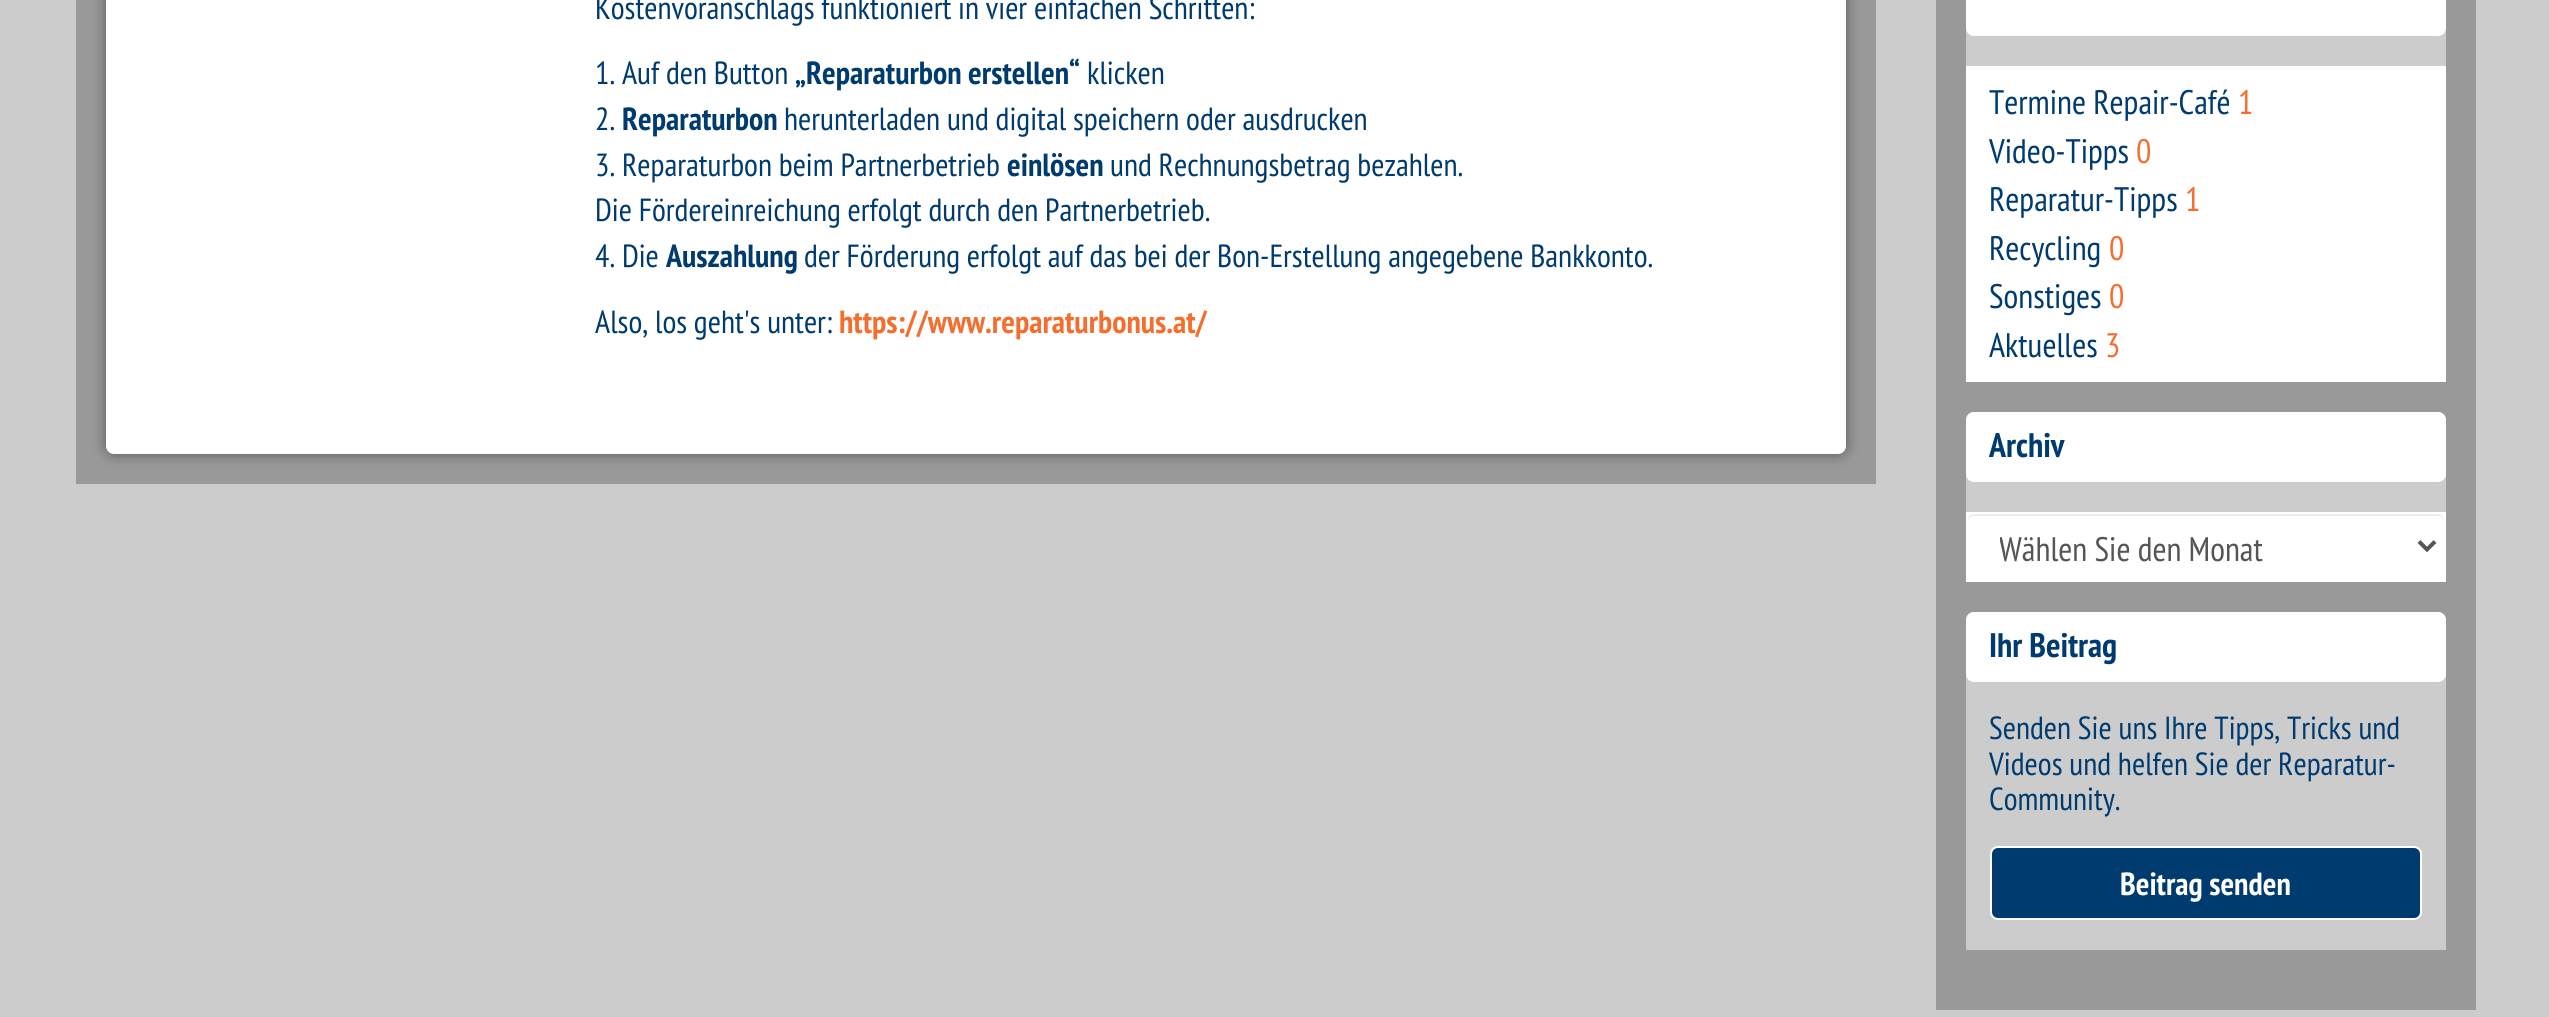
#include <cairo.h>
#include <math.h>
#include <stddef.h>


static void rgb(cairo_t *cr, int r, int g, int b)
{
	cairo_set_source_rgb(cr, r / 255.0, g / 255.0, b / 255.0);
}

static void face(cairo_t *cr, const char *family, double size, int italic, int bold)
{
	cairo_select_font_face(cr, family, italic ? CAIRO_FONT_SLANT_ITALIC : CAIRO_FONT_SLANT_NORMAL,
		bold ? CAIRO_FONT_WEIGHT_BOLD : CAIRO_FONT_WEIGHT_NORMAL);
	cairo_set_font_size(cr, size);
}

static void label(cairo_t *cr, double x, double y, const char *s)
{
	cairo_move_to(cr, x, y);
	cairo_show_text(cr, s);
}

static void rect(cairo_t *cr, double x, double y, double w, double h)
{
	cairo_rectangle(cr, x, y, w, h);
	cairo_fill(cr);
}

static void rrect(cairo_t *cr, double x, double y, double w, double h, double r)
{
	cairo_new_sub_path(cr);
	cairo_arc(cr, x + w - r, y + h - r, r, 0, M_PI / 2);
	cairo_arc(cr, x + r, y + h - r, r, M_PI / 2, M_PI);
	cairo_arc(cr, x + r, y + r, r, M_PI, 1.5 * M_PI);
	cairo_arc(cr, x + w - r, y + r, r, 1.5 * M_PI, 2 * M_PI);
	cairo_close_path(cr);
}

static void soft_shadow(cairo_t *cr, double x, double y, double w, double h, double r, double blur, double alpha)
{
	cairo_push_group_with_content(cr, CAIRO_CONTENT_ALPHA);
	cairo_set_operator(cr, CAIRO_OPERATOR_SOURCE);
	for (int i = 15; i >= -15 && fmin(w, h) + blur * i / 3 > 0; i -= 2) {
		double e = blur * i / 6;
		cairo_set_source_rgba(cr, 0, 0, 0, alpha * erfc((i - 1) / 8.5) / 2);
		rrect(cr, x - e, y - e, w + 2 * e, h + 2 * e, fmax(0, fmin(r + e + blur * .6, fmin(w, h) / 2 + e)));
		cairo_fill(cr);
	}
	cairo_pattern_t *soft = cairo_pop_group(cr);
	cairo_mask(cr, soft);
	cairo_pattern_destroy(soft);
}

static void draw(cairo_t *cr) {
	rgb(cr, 204, 204, 204);
	cairo_paint(cr);
	rgb(cr, 153, 153, 153);
	rect(cr, 76, 0, 1800, 484);
	rgb(cr, 85, 85, 85);
	soft_shadow(cr, 106, -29, 1740, 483, 8, 7, 1);
	rgb(cr, 255, 255, 255);
	rrect(cr, 106, -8, 1740, 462, 8);
	cairo_fill(cr);
	face(cr, "PT Sans Narrow", 32, 0, 0);
	rgb(cr, 0, 59, 111);
	label(cr, 595, 19, "Kostenvoranschlags funktioniert in vier einfachen Schritten:");
	label(cr, 595, 84, "1. Auf den Button");
	face(cr, "PT Sans Narrow", 32, 0, 1);
	label(cr, 795, 84, "„Reparaturbon erstellen“");
	face(cr, "PT Sans Narrow", 32, 0, 0);
	label(cr, 1087, 84, "klicken");
	label(cr, 595, 130, "2.");
	face(cr, "PT Sans Narrow", 32, 0, 1);
	label(cr, 622, 130, "Reparaturbon");
	face(cr, "PT Sans Narrow", 32, 0, 0);
	label(cr, 784, 130, "herunterladen und digital speichern oder ausdrucken");
	label(cr, 595, 176, "3. Reparaturbon beim Partnerbetrieb");
	face(cr, "PT Sans Narrow", 32, 0, 1);
	label(cr, 1007, 176, "einlösen");
	face(cr, "PT Sans Narrow", 32, 0, 0);
	label(cr, 1110, 176, "und Rechnungsbetrag bezahlen.");
	label(cr, 595, 221, "Die Fördereinreichung erfolgt durch den Partnerbetrieb.");
	label(cr, 595, 267, "4. Die");
	face(cr, "PT Sans Narrow", 32, 0, 1);
	label(cr, 666, 267, "Auszahlung");
	face(cr, "PT Sans Narrow", 32, 0, 0);
	label(cr, 804, 267, "der Förderung erfolgt auf das bei der Bon-Erstellung angegebene Bankkonto.");
	label(cr, 595, 333, "Also, los geht's unter:");
	face(cr, "PT Sans Narrow", 32, 0, 1);
	rgb(cr, 244, 110, 47);
	label(cr, 839, 333, "https://www.reparaturbonus.at/");
	rgb(cr, 153, 153, 153);
	rect(cr, 1936, 0, 540, 1010);
	rgb(cr, 204, 204, 204);
	rect(cr, 1966, 28, 480, 38);
	rgb(cr, 255, 255, 255);
	rrect(cr, 1966, -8, 480, 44, 8);
	cairo_fill(cr);
	rect(cr, 1966, 66, 480, 316);
	face(cr, "PT Sans Narrow", 34, 0, 0);
	rgb(cr, 0, 59, 111);
	label(cr, 1989, 114, "Termine Repair-Café");
	rgb(cr, 244, 110, 47);
	label(cr, 2238, 114, "1");
	rgb(cr, 0, 59, 111);
	label(cr, 1989, 163, "Video-Tipps");
	rgb(cr, 244, 110, 47);
	label(cr, 2136, 163, "0");
	rgb(cr, 0, 59, 111);
	label(cr, 1989, 211, "Reparatur-Tipps");
	rgb(cr, 244, 110, 47);
	label(cr, 2185, 211, "1");
	rgb(cr, 0, 59, 111);
	label(cr, 1989, 260, "Recycling");
	rgb(cr, 244, 110, 47);
	label(cr, 2109, 260, "0");
	rgb(cr, 0, 59, 111);
	label(cr, 1989, 308, "Sonstiges");
	rgb(cr, 244, 110, 47);
	label(cr, 2109, 308, "0");
	rgb(cr, 0, 59, 111);
	label(cr, 1989, 357, "Aktuelles");
	rgb(cr, 244, 110, 47);
	label(cr, 2105, 357, "3");
	rgb(cr, 204, 204, 204);
	cairo_new_path(cr);
	cairo_move_to(cr, 1974, 412);
	cairo_line_to(cr, 2438, 412);
	cairo_curve_to(cr, 2442.5, 412, 2446, 415.5, 2446, 420);
	cairo_line_to(cr, 2446, 582);
	cairo_line_to(cr, 1966, 582);
	cairo_line_to(cr, 1966, 420);
	cairo_curve_to(cr, 1966, 415.5, 1969.5, 412, 1974, 412);
	cairo_close_path(cr);
	cairo_fill(cr);
	rgb(cr, 255, 255, 255);
	rrect(cr, 1966, 412, 480, 70, 8);
	cairo_fill(cr);
	face(cr, "PT Sans Narrow", 34, 0, 1);
	rgb(cr, 0, 59, 111);
	label(cr, 1989, 457, "Archiv");
	rgb(cr, 255, 255, 255);
	rect(cr, 1966, 512, 480, 70);
	rgb(cr, 236, 236, 236);
	cairo_new_path(cr);
	cairo_move_to(cr, 1974, 516);
	cairo_line_to(cr, 2438, 516);
	cairo_curve_to(cr, 2441, 516, 2444, 519, 2444, 522);
	cairo_curve_to(cr, 2444, 518, 2443, 514, 2438, 514);
	cairo_line_to(cr, 1974, 514);
	cairo_curve_to(cr, 1969, 514, 1968, 518, 1968, 522);
	cairo_curve_to(cr, 1968, 519, 1971, 516, 1974, 516);
	cairo_close_path(cr);
	cairo_fill(cr);
	rrect(cr, 1967, 513, 478, 66, 7);
	rgb(cr, 255, 255, 255);
	cairo_stroke(cr);
	cairo_new_path(cr);
	cairo_move_to(cr, 2419, 541.5);
	cairo_line_to(cr, 2427, 549.5);
	cairo_line_to(cr, 2435, 541.5);
	rgb(cr, 85, 85, 85);
	cairo_set_line_width(cr, 4);
	cairo_stroke(cr);
	cairo_save(cr);
	cairo_rectangle(cr, 2000, 526, 388, 48);
	cairo_clip(cr);
	face(cr, "PT Sans Narrow", 34, 0, 0);
	label(cr, 1999, 561, "Wählen Sie den Monat");
	cairo_restore(cr);
	rgb(cr, 204, 204, 204);
	cairo_new_path(cr);
	cairo_move_to(cr, 1974, 612);
	cairo_line_to(cr, 2438, 612);
	cairo_curve_to(cr, 2442.5, 612, 2446, 615.5, 2446, 620);
	cairo_line_to(cr, 2446, 950);
	cairo_line_to(cr, 1966, 950);
	cairo_line_to(cr, 1966, 620);
	cairo_curve_to(cr, 1966, 615.5, 1969.5, 612, 1974, 612);
	cairo_close_path(cr);
	cairo_fill(cr);
	rgb(cr, 255, 255, 255);
	rrect(cr, 1966, 612, 480, 70, 8);
	cairo_fill(cr);
	rgb(cr, 0, 59, 111);
	label(cr, 1989, 657, "Ihr Beitrag");
	face(cr, "PT Sans Narrow", 32, 0, 0);
	label(cr, 1989, 739, "Senden Sie uns Ihre Tipps, Tricks und");
	label(cr, 1989, 775, "Videos und helfen Sie der Reparatur-");
	label(cr, 1989, 810, "Community.");
	rrect(cr, 1991, 847, 430, 72, 7);
	cairo_fill_preserve(cr);
	rgb(cr, 255, 255, 255);
	cairo_set_line_width(cr, 2);
	cairo_stroke(cr);
	face(cr, "PT Sans Narrow", 32, 0, 1);
	label(cr, 2120, 895, "Beitrag senden");
}

int main(void) {
	cairo_surface_t *surface = cairo_image_surface_create(CAIRO_FORMAT_RGB24, 2549, 1017);
	cairo_t *cr = cairo_create(surface);
	cairo_font_options_t *options = cairo_font_options_create();
	cairo_font_options_set_hint_metrics(options, CAIRO_HINT_METRICS_OFF);
	cairo_font_options_set_hint_style(options, CAIRO_HINT_STYLE_NONE);
	cairo_set_font_options(cr, options);
	cairo_set_miter_limit(cr, 4);
	draw(cr);
	cairo_surface_write_to_png(surface, "render.png");
	cairo_font_options_destroy(options);
	cairo_destroy(cr);
	cairo_surface_destroy(surface);
	return 0;
}
